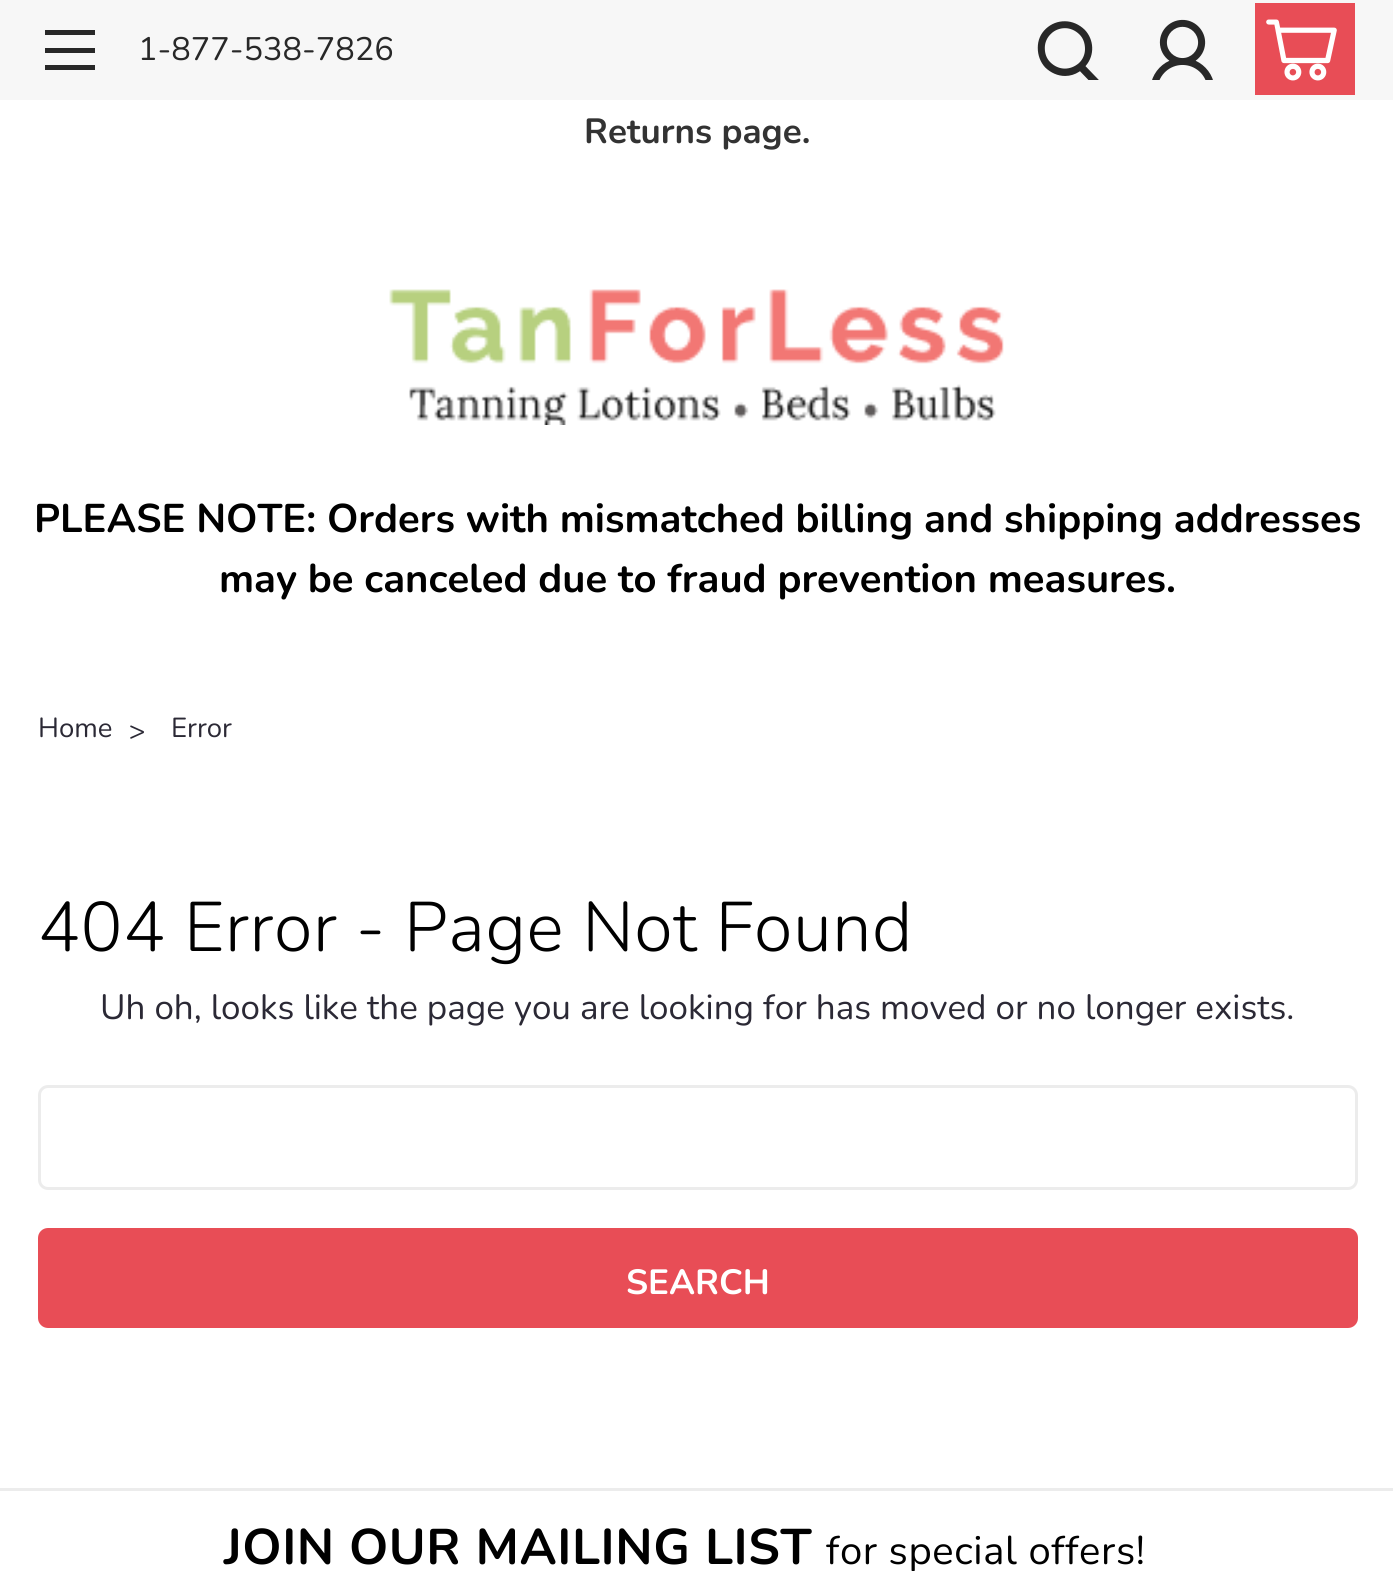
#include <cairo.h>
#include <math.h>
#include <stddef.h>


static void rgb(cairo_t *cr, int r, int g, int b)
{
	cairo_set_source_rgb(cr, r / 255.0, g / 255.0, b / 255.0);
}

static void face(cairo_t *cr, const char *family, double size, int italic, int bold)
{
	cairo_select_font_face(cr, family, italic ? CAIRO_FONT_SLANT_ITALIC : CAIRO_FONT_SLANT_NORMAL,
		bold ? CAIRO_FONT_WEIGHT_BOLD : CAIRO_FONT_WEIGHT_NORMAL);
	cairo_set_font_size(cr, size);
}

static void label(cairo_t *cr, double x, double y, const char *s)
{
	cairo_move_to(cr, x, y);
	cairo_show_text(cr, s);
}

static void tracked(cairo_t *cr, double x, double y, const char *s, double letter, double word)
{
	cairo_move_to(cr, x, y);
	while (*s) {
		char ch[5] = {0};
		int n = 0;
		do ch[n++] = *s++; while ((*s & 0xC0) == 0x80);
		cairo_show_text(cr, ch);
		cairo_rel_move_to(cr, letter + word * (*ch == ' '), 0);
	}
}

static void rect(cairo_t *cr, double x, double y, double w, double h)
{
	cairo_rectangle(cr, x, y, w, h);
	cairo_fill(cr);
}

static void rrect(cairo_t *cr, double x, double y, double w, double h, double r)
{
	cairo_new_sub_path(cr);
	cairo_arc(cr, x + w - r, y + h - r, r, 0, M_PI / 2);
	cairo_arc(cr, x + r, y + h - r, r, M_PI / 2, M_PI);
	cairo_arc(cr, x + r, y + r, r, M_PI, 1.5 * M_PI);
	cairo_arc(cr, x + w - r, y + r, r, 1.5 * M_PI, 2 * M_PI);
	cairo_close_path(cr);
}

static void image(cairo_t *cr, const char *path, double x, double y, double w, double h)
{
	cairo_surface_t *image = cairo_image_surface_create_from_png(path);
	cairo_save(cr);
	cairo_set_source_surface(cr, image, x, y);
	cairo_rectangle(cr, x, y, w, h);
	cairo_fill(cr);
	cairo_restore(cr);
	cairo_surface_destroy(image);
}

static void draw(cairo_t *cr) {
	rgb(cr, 255, 255, 255);
	cairo_paint(cr);
	rgb(cr, 247, 247, 247);
	rect(cr, 0, 0, 1393, 100);
	rgb(cr, 40, 40, 40);
	rect(cr, 45, 48, 50, 5);
	rect(cr, 45, 30, 50, 5);
	rect(cr, 45, 65, 50, 5);
	face(cr, "Nunito", 32.5, 0, 0);
	label(cr, 138, 60, "1-877-538-7826");
	image(cr, "image0.png", 1037, 21, 62, 59);
	image(cr, "image1.png", 1152, 19, 61, 61);
	rgb(cr, 232, 77, 86);
	rect(cr, 1255, 3, 100, 92);
	image(cr, "image2.png", 1266, 19, 71, 62);
	face(cr, "Nunito", 35, 0, 1);
	rgb(cr, 51, 51, 51);
	label(cr, 584, 143, "Returns page.");
	image(cr, "image3.png", 389, 289, 615, 136);
	face(cr, "Nunito", 40, 0, 1);
	rgb(cr, 0, 0, 0);
	label(cr, 34, 532, "PLEASE NOTE: Orders with mismatched billing and shipping addresses");
	label(cr, 219, 592, "may be canceled due to fraud prevention measures.");
	face(cr, "Nunito", 27.5, 0, 0);
	rgb(cr, 43, 41, 53);
	label(cr, 38, 737, "Home");
	label(cr, 129, 740, ">");
	label(cr, 171, 737, "Error");
	face(cr, "Nunito Light", 70, 0, 0);
	rgb(cr, 0, 0, 0);
	tracked(cr, 38, 951, "404 Error - Page Not Found", 0.6, 0);
	face(cr, "Nunito", 35, 0, 0);
	rgb(cr, 43, 41, 53);
	label(cr, 100, 1019, "Uh oh, looks like the page you are looking for has moved or no longer exists.");
	rrect(cr, 39.5, 1086.5, 1317, 102, 8.5);
	rgb(cr, 236, 236, 236);
	cairo_set_line_width(cr, 3);
	cairo_stroke(cr);
	rgb(cr, 232, 77, 86);
	rrect(cr, 39.5, 1229.5, 1317, 97, 8.5);
	cairo_fill_preserve(cr);
	cairo_stroke(cr);
	face(cr, "Nunito", 35, 0, 1);
	rgb(cr, 255, 255, 255);
	label(cr, 626, 1294, "SEARCH");
	rgb(cr, 236, 236, 236);
	rect(cr, 0, 1488, 1393, 3);
	face(cr, "Nunito", 50, 0, 1);
	rgb(cr, 0, 0, 0);
	tracked(cr, 224, 1564, "JOIN OUR MAILING LIST", 0.6, 0);
	face(cr, "Nunito", 40, 0, 0);
	tracked(cr, 826, 1564, "for special offers!", 0.6, 0);
}

int main(void) {
	cairo_surface_t *surface = cairo_image_surface_create(CAIRO_FORMAT_RGB24, 1393, 1571);
	cairo_t *cr = cairo_create(surface);
	cairo_font_options_t *options = cairo_font_options_create();
	cairo_font_options_set_hint_metrics(options, CAIRO_HINT_METRICS_OFF);
	cairo_font_options_set_hint_style(options, CAIRO_HINT_STYLE_NONE);
	cairo_set_font_options(cr, options);
	cairo_set_miter_limit(cr, 4);
	draw(cr);
	cairo_surface_write_to_png(surface, "render.png");
	cairo_font_options_destroy(options);
	cairo_destroy(cr);
	cairo_surface_destroy(surface);
	return 0;
}
